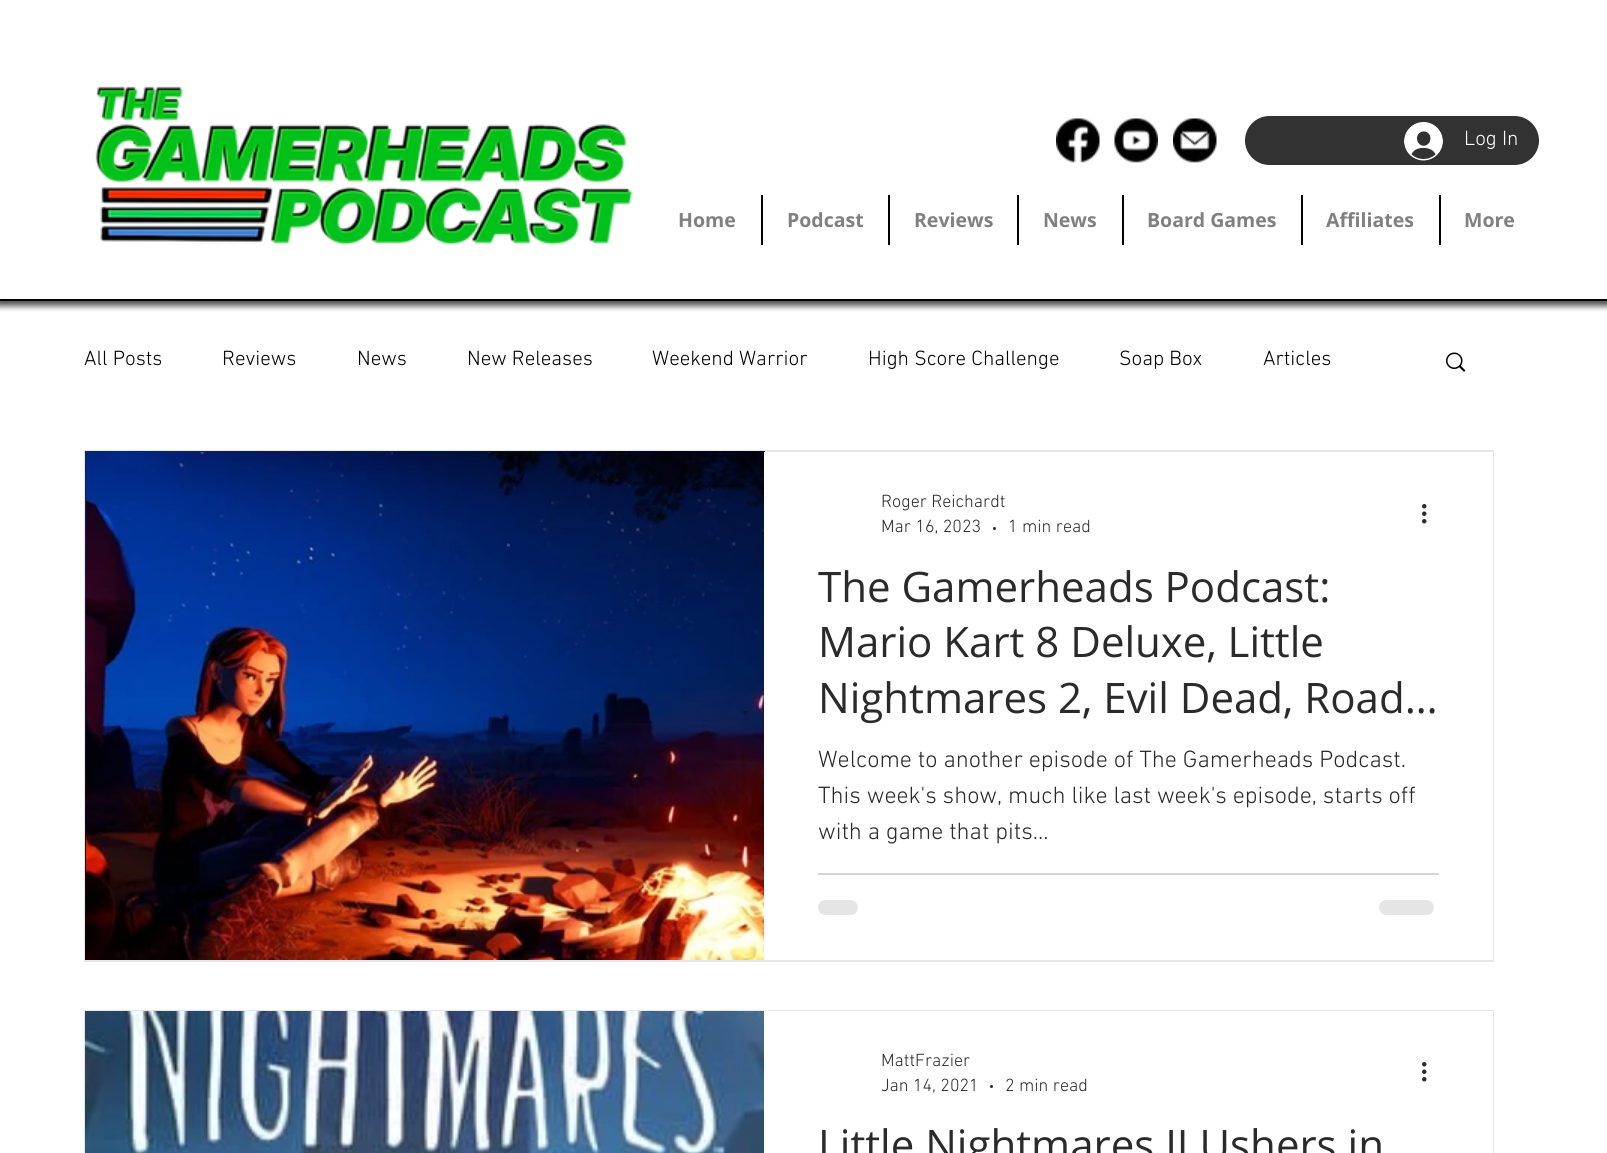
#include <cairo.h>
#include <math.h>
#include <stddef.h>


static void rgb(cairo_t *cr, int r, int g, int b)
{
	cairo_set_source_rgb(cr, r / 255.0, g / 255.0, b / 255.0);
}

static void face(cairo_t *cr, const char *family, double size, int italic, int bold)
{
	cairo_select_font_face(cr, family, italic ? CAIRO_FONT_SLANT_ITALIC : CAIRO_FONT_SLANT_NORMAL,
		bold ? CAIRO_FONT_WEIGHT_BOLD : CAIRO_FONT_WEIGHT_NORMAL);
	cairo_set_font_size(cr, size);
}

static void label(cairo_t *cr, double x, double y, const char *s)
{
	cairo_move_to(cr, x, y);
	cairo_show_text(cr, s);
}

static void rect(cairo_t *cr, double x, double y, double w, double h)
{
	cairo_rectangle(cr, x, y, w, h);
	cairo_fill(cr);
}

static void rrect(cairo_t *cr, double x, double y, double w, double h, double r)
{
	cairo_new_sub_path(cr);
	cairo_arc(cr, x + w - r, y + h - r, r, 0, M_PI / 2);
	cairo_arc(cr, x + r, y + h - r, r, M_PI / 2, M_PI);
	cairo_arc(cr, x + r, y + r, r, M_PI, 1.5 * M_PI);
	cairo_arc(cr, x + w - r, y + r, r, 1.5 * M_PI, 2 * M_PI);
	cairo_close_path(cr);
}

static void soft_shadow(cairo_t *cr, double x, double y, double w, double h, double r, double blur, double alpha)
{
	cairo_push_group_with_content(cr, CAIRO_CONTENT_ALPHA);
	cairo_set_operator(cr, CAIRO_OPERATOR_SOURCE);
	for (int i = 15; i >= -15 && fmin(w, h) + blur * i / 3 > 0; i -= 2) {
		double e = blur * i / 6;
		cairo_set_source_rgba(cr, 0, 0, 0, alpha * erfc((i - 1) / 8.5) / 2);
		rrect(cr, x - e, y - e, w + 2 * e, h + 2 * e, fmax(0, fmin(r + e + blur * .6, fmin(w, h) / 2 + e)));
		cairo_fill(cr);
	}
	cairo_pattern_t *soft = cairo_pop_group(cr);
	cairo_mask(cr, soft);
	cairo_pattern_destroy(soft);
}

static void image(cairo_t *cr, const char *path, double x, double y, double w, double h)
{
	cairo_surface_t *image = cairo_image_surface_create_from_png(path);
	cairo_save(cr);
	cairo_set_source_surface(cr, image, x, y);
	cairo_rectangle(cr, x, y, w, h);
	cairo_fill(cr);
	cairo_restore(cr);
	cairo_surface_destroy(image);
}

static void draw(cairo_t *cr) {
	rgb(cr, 255, 255, 255);
	cairo_paint(cr);
	cairo_save(cr);
	cairo_rectangle(cr, 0, 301, 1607, 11);
	cairo_clip(cr);
	rgb(cr, 0, 0, 0);
	soft_shadow(cr, -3, 0, 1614, 306, 0, 3, 0.68);
	cairo_restore(cr);
	rgb(cr, 0, 0, 0);
	rect(cr, 0, 299, 1607, 2);
	image(cr, "image0.png", 95, 86, 538, 159);
	image(cr, "image1.png", 1056, 118, 44, 45);
	image(cr, "image2.png", 1114, 118, 44, 45);
	image(cr, "image3.png", 1173, 118, 44, 45);
	rgb(cr, 50, 50, 50);
	rrect(cr, 1245, 116, 294, 49, 24.5);
	cairo_fill(cr);
	image(cr, "image4.png", 1404, 122, 39, 39);
	face(cr, "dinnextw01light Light", 21, 0, 0);
	rgb(cr, 255, 255, 255);
	label(cr, 1464, 145, "Log In");
	face(cr, "Open Sans", 19.5, 0, 1);
	rgb(cr, 128, 128, 128);
	label(cr, 678, 227, "Home");
	rgb(cr, 0, 0, 0);
	rect(cr, 761, 195, 2, 50);
	rgb(cr, 128, 128, 128);
	label(cr, 787, 227, "Podcast");
	rgb(cr, 0, 0, 0);
	rect(cr, 888, 195, 2, 50);
	rgb(cr, 128, 128, 128);
	label(cr, 914, 227, "Reviews");
	rgb(cr, 0, 0, 0);
	rect(cr, 1017, 195, 2, 50);
	rgb(cr, 128, 128, 128);
	label(cr, 1043, 227, "News");
	rgb(cr, 0, 0, 0);
	rect(cr, 1122, 195, 2, 50);
	rgb(cr, 128, 128, 128);
	label(cr, 1147, 227, "Board Games");
	rgb(cr, 0, 0, 0);
	rect(cr, 1301, 195, 2, 50);
	rgb(cr, 128, 128, 128);
	label(cr, 1326, 227, "Affiliates");
	rgb(cr, 0, 0, 0);
	rect(cr, 1439, 195, 2, 50);
	rgb(cr, 128, 128, 128);
	label(cr, 1464, 227, "More");
	face(cr, "dinnextw01light Light", 21, 0, 0);
	rgb(cr, 0, 0, 0);
	label(cr, 84, 365, "All Posts");
	label(cr, 222, 365, "Reviews");
	label(cr, 357, 365, "News");
	label(cr, 467, 365, "New Releases");
	label(cr, 652, 365, "Weekend Warrior");
	label(cr, 868, 365, "High Score Challenge");
	label(cr, 1119, 365, "Soap Box");
	label(cr, 1263, 365, "Articles");
	image(cr, "image5.png", 1446, 352, 20, 20);
	cairo_rectangle(cr, 85, 451, 1408, 510);
	rgb(cr, 230, 230, 230);
	cairo_stroke(cr);
	image(cr, "image6.png", 85, 451, 680, 509);
	image(cr, "image7.png", 86, 452, 678, 508);
	rgb(cr, 255, 255, 255);
	rect(cr, 764, 452, 729, 508);
	face(cr, "dinnextw01light Light", 18, 0, 0);
	rgb(cr, 42, 42, 42);
	label(cr, 881, 507, "Roger Reichardt");
	label(cr, 881, 532, "Mar 16, 2023");
	cairo_new_path(cr);
	cairo_arc(cr, 994.5, 528.5, 1.5, 0, 2 * M_PI);
	cairo_fill(cr);
	label(cr, 1008, 532, "1 min read");
	image(cr, "image8.png", 1422, 504, 5, 20);
	cairo_save(cr);
	cairo_rectangle(cr, 818, 558, 621, 167);
	cairo_clip(cr);
	face(cr, "Open Sans", 42, 0, 0);
	label(cr, 818, 602, "The Gamerheads Podcast:");
	cairo_restore(cr);
	face(cr, "Open Sans", 42, 0, 0);
	label(cr, 818, 657, "Mario Kart 8 Deluxe, Little");
	label(cr, 818, 713, "Nightmares 2, Evil Dead, Road…");
	face(cr, "dinnextw01light Light", 24, 0, 0);
	label(cr, 818, 767, "Welcome to another episode of The Gamerheads Podcast.");
	label(cr, 818, 803, "This week's show, much like last week's episode, starts off");
	label(cr, 818, 839, "with a game that pits...");
	rgb(cr, 212, 212, 212);
	rect(cr, 818, 873, 621, 2);
	rgb(cr, 229, 229, 229);
	rrect(cr, 818, 900, 40, 15, 7.5);
	cairo_fill(cr);
	rrect(cr, 1379, 900, 55, 15, 7.5);
	cairo_fill(cr);
	cairo_rectangle(cr, 85, 1011, 1408, 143);
	rgb(cr, 230, 230, 230);
	cairo_stroke(cr);
	image(cr, "image9.png", 85, 1011, 679, 142);
	rgb(cr, 255, 255, 255);
	rect(cr, 764, 1011, 729, 142);
	face(cr, "dinnextw01light Light", 18, 0, 0);
	rgb(cr, 42, 42, 42);
	label(cr, 881, 1066, "MattFrazier");
	label(cr, 881, 1091, "Jan 14, 2021");
	cairo_new_path(cr);
	cairo_arc(cr, 991.5, 1086.5, 1.5, 0, 2 * M_PI);
	cairo_fill(cr);
	label(cr, 1005, 1091, "2 min read");
	image(cr, "image8.png", 1422, 1062, 5, 20);
	face(cr, "Open Sans", 42, 0, 0);
	label(cr, 818, 1160, "Little Nightmares II Ushers in");
}

int main(void) {
	cairo_surface_t *surface = cairo_image_surface_create(CAIRO_FORMAT_RGB24, 1607, 1153);
	cairo_t *cr = cairo_create(surface);
	cairo_font_options_t *options = cairo_font_options_create();
	cairo_font_options_set_hint_metrics(options, CAIRO_HINT_METRICS_OFF);
	cairo_font_options_set_hint_style(options, CAIRO_HINT_STYLE_NONE);
	cairo_set_font_options(cr, options);
	cairo_set_miter_limit(cr, 4);
	draw(cr);
	cairo_surface_write_to_png(surface, "render.png");
	cairo_font_options_destroy(options);
	cairo_destroy(cr);
	cairo_surface_destroy(surface);
	return 0;
}
